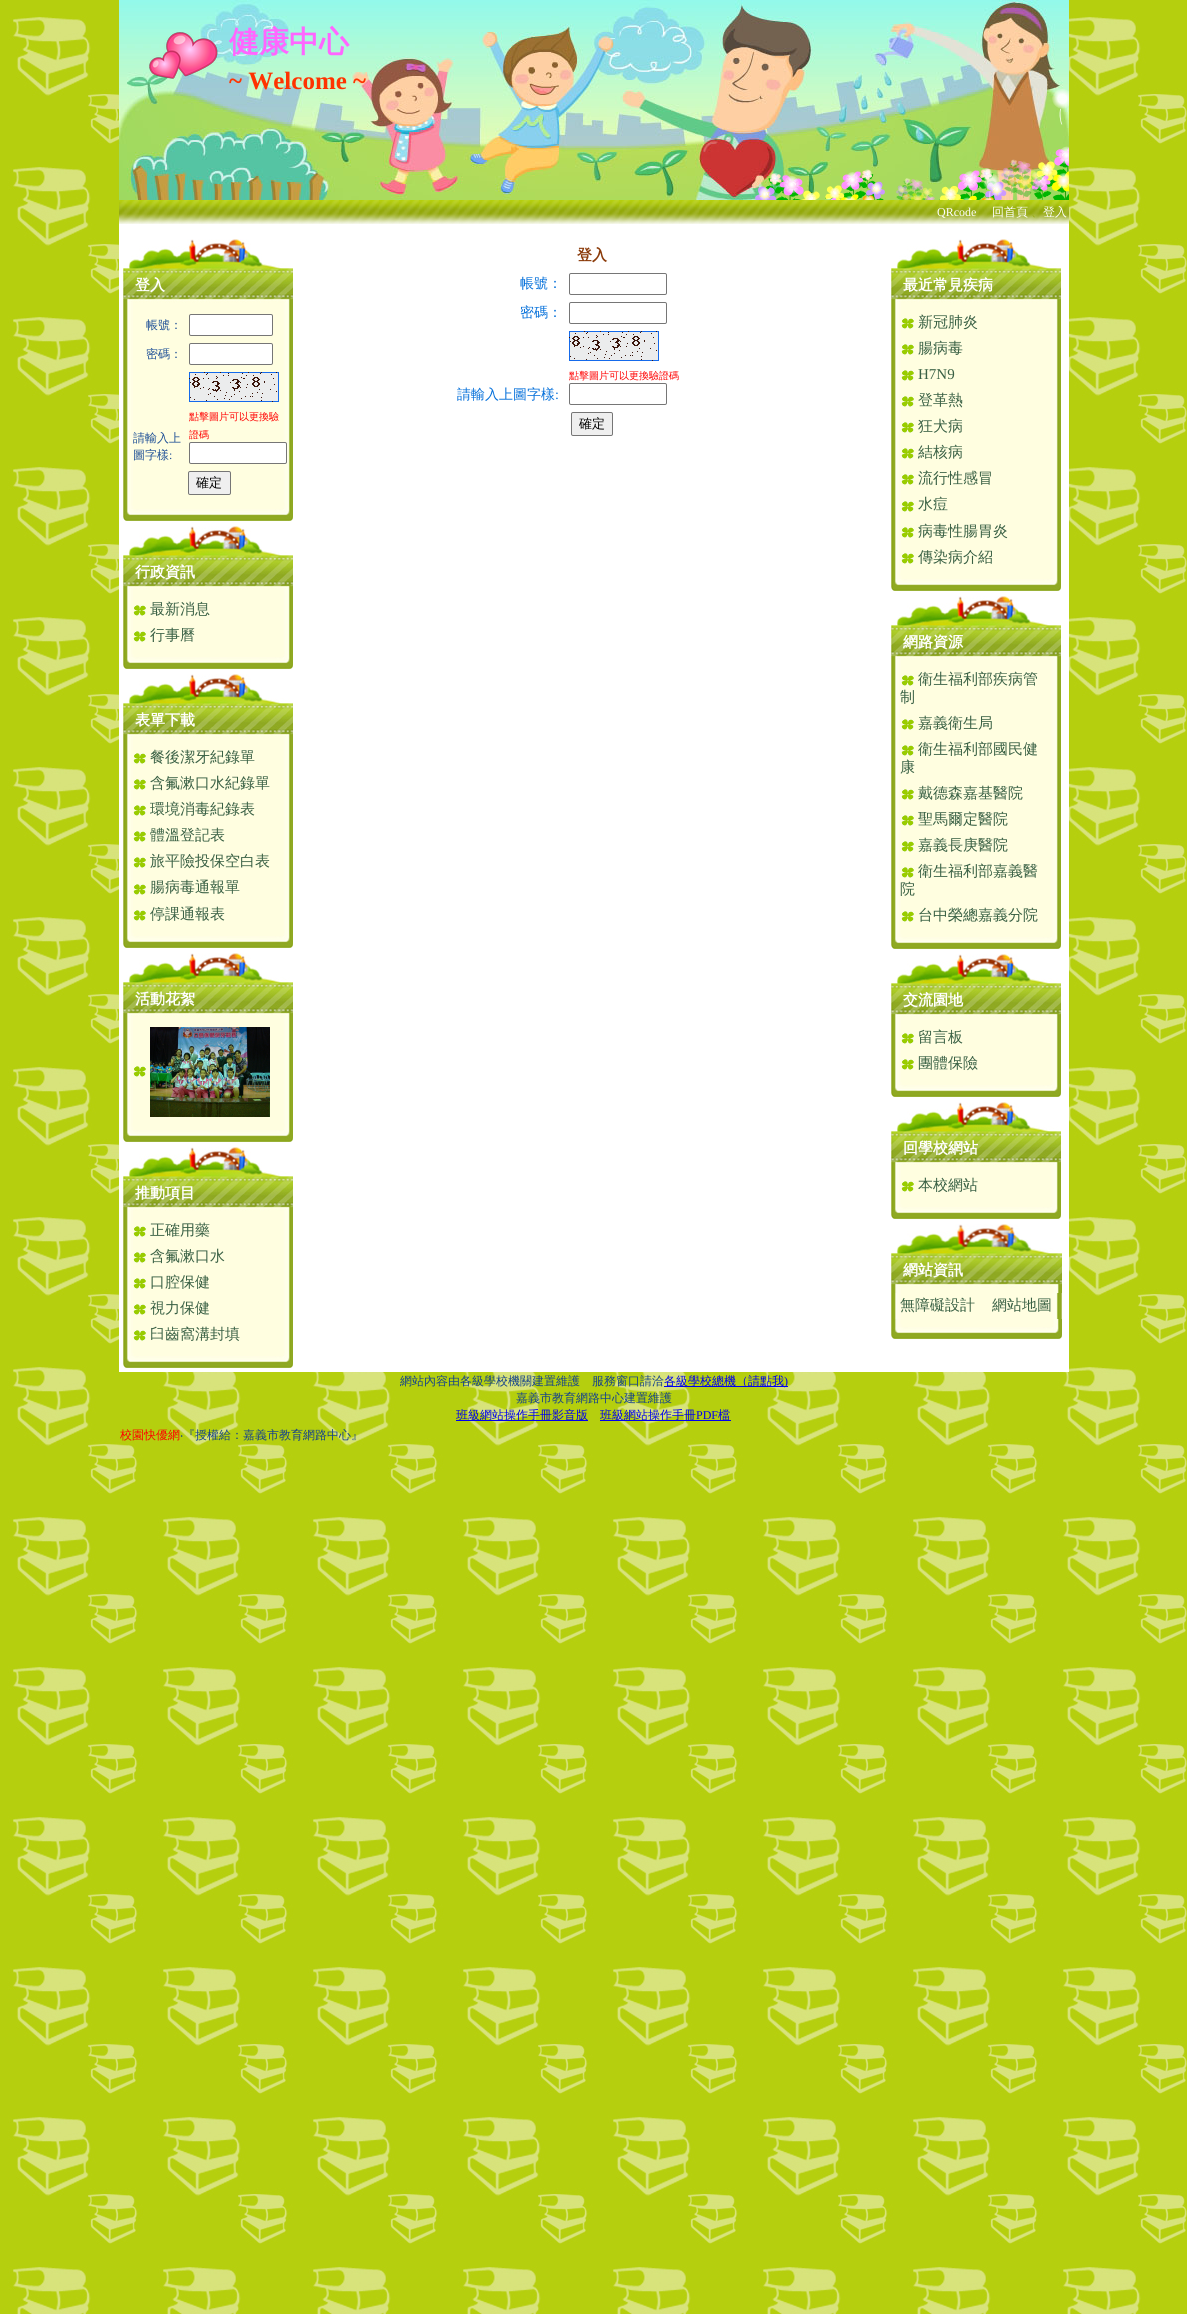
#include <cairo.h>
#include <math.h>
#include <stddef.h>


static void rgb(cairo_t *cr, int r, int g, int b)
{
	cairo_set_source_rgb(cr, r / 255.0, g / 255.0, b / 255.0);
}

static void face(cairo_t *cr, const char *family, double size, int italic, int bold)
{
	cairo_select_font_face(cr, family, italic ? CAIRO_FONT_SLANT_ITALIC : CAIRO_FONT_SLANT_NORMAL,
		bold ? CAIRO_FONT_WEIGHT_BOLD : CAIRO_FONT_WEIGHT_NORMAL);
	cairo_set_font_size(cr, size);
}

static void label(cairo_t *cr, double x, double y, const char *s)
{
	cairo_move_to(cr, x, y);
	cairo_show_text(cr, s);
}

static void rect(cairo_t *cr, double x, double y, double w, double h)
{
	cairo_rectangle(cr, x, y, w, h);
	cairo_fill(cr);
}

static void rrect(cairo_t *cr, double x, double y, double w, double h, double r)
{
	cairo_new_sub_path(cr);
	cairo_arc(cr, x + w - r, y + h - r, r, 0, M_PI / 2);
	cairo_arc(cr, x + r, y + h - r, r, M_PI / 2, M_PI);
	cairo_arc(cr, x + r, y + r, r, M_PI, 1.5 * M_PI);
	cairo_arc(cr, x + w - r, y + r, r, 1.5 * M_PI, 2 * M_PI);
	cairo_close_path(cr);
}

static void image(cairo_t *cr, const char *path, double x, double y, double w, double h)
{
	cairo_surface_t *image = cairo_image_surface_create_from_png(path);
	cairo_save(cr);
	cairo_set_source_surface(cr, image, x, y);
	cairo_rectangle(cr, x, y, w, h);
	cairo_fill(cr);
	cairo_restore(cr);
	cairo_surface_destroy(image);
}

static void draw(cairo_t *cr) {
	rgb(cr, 255, 255, 255);
	cairo_paint(cr);
	image(cr, "image0.png", 0, 0, 1187, 2314);
	image(cr, "image1.png", 119, 0, 950, 200);
	image(cr, "image2.png", 149, 32, 69, 47);
	face(cr, "WenQuanYi Zen Hei", 30, 0, 1);
	rgb(cr, 255, 102, 255);
	label(cr, 229, 52, "健康中心");
	face(cr, "Liberation Serif", 25, 0, 1);
	rgb(cr, 255, 51, 0);
	label(cr, 229, 89, "~ Welcome ~");
	image(cr, "image3.png", 755, 89, 314, 111);
	rgb(cr, 255, 255, 255);
	rect(cr, 119, 224, 950, 1148);
	image(cr, "image4.png", 119, 200, 950, 24);
	face(cr, "Liberation Serif", 12, 0, 0);
	label(cr, 937, 216, "QRcode");
	face(cr, "WenQuanYi Zen Hei Medium", 12, 0, 0);
	label(cr, 992, 216, "回首頁");
	rgb(cr, 148, 169, 12);
	label(cr, 1031, 216, "、");
	rgb(cr, 255, 255, 255);
	label(cr, 1043, 216, "登入");
	image(cr, "image5.png", 129, 239, 133, 24);
	image(cr, "image6.png", 123, 263, 170, 45);
	face(cr, "WenQuanYi Zen Hei", 15, 0, 1);
	label(cr, 135, 290, "登入");
	image(cr, "image7.png", 123, 308, 170, 193);
	face(cr, "WenQuanYi Zen Hei Medium", 12, 0, 0);
	rgb(cr, 30, 79, 150);
	label(cr, 146, 329, "帳號：");
	rgb(cr, 255, 255, 255);
	rrect(cr, 189.5, 314.5, 83, 21, 1.5);
	cairo_fill_preserve(cr);
	rgb(cr, 118, 118, 118);
	cairo_set_line_width(cr, 1);
	cairo_stroke(cr);
	rgb(cr, 30, 79, 150);
	label(cr, 146, 358, "密碼：");
	rgb(cr, 255, 255, 255);
	rrect(cr, 189.5, 343.5, 83, 21, 1.5);
	cairo_fill_preserve(cr);
	rgb(cr, 118, 118, 118);
	cairo_stroke(cr);
	image(cr, "image8.png", 189, 372, 90, 30);
	face(cr, "WenQuanYi Zen Hei Medium", 10, 0, 0);
	rgb(cr, 255, 0, 0);
	label(cr, 189, 420, "點擊圖片可以更換驗");
	label(cr, 189, 438, "證碼");
	rgb(cr, 255, 255, 255);
	rrect(cr, 189.5, 442.5, 97, 21, 1.5);
	cairo_fill_preserve(cr);
	rgb(cr, 118, 118, 118);
	cairo_stroke(cr);
	face(cr, "WenQuanYi Zen Hei Medium", 12, 0, 0);
	rgb(cr, 30, 79, 150);
	label(cr, 133, 442, "請輸入上");
	label(cr, 133, 459, "圖字樣");
	face(cr, "Liberation Serif", 12, 0, 0);
	label(cr, 169, 459, ":");
	rgb(cr, 239, 239, 239);
	rrect(cr, 188.5, 471.5, 42, 23, 1.5);
	cairo_fill_preserve(cr);
	rgb(cr, 118, 118, 118);
	cairo_stroke(cr);
	face(cr, "WenQuanYi Zen Hei Medium", 13, 0, 0);
	rgb(cr, 0, 0, 0);
	label(cr, 196, 487, "確定");
	image(cr, "image9.png", 123, 501, 170, 20);
	image(cr, "image5.png", 129, 526, 133, 24);
	image(cr, "image6.png", 123, 550, 170, 45);
	face(cr, "WenQuanYi Zen Hei", 15, 0, 1);
	rgb(cr, 255, 255, 255);
	label(cr, 135, 577, "行政資訊");
	image(cr, "image10.png", 123, 595, 170, 54);
	image(cr, "image11.png", 133, 605, 13, 11);
	face(cr, "WenQuanYi Zen Hei Medium", 15, 0, 0);
	rgb(cr, 57, 96, 68);
	label(cr, 150, 614, "最新消息");
	image(cr, "image11.png", 133, 631, 13, 11);
	label(cr, 150, 640, "行事曆");
	image(cr, "image9.png", 123, 649, 170, 20);
	image(cr, "image5.png", 129, 674, 133, 24);
	image(cr, "image6.png", 123, 698, 170, 45);
	face(cr, "WenQuanYi Zen Hei", 15, 0, 1);
	rgb(cr, 255, 255, 255);
	label(cr, 135, 725, "表單下載");
	image(cr, "image12.png", 123, 743, 170, 185);
	image(cr, "image11.png", 133, 753, 13, 11);
	face(cr, "WenQuanYi Zen Hei Medium", 15, 0, 0);
	rgb(cr, 57, 96, 68);
	label(cr, 150, 762, "餐後潔牙紀錄單");
	image(cr, "image11.png", 133, 779, 13, 11);
	label(cr, 150, 788, "含氟漱口水紀錄單");
	image(cr, "image11.png", 133, 805, 13, 11);
	label(cr, 150, 814, "環境消毒紀錄表");
	image(cr, "image11.png", 133, 831, 13, 11);
	label(cr, 150, 840, "體溫登記表");
	image(cr, "image11.png", 133, 857, 13, 11);
	label(cr, 150, 866, "旅平險投保空白表");
	image(cr, "image11.png", 133, 884, 13, 11);
	label(cr, 150, 892, "腸病毒通報單");
	image(cr, "image11.png", 133, 910, 13, 11);
	label(cr, 150, 919, "停課通報表");
	image(cr, "image9.png", 123, 928, 170, 20);
	image(cr, "image5.png", 129, 953, 133, 24);
	image(cr, "image6.png", 123, 977, 170, 45);
	face(cr, "WenQuanYi Zen Hei", 15, 0, 1);
	rgb(cr, 255, 255, 255);
	label(cr, 135, 1004, "活動花絮");
	image(cr, "image13.png", 123, 1022, 170, 100);
	image(cr, "image11.png", 133, 1066, 13, 11);
	image(cr, "image14.png", 150, 1027, 120, 90);
	image(cr, "image9.png", 123, 1122, 170, 20);
	image(cr, "image5.png", 129, 1147, 133, 24);
	image(cr, "image6.png", 123, 1171, 170, 45);
	label(cr, 135, 1198, "推動項目");
	image(cr, "image15.png", 123, 1216, 170, 132);
	image(cr, "image11.png", 133, 1226, 13, 11);
	face(cr, "WenQuanYi Zen Hei Medium", 15, 0, 0);
	rgb(cr, 57, 96, 68);
	label(cr, 150, 1235, "正確用藥");
	image(cr, "image11.png", 133, 1252, 13, 11);
	label(cr, 150, 1261, "含氟漱口水");
	image(cr, "image11.png", 133, 1278, 13, 11);
	label(cr, 150, 1287, "口腔保健");
	image(cr, "image11.png", 133, 1304, 13, 11);
	label(cr, 150, 1313, "視力保健");
	image(cr, "image11.png", 133, 1330, 13, 11);
	label(cr, 150, 1339, "臼齒窩溝封填");
	image(cr, "image9.png", 123, 1348, 170, 20);
	face(cr, "WenQuanYi Zen Hei", 15, 0, 1);
	rgb(cr, 139, 59, 10);
	label(cr, 577, 260, "登入");
	face(cr, "WenQuanYi Zen Hei Medium", 14, 0, 0);
	rgb(cr, 5, 112, 218);
	label(cr, 520, 288, "帳號：");
	rrect(cr, 569.5, 273.5, 97, 21, 1.5);
	rgb(cr, 118, 118, 118);
	cairo_stroke(cr);
	rgb(cr, 5, 112, 218);
	label(cr, 520, 317, "密碼：");
	rrect(cr, 569.5, 302.5, 97, 21, 1.5);
	rgb(cr, 118, 118, 118);
	cairo_stroke(cr);
	image(cr, "image8.png", 569, 331, 90, 30);
	face(cr, "WenQuanYi Zen Hei Medium", 10, 0, 0);
	rgb(cr, 255, 0, 0);
	label(cr, 569, 379, "點擊圖片可以更換驗證碼");
	rrect(cr, 569.5, 383.5, 97, 21, 1.5);
	rgb(cr, 118, 118, 118);
	cairo_stroke(cr);
	face(cr, "WenQuanYi Zen Hei Medium", 14, 0, 0);
	rgb(cr, 5, 112, 218);
	label(cr, 457, 399, "請輸入上圖字樣");
	face(cr, "Liberation Serif", 14, 0, 0);
	label(cr, 555, 399, ":");
	rgb(cr, 239, 239, 239);
	rrect(cr, 571.5, 412.5, 41, 23, 1.5);
	cairo_fill_preserve(cr);
	rgb(cr, 118, 118, 118);
	cairo_stroke(cr);
	face(cr, "WenQuanYi Zen Hei Medium", 13, 0, 0);
	rgb(cr, 0, 0, 0);
	label(cr, 579, 428, "確定");
	image(cr, "image5.png", 897, 239, 133, 24);
	image(cr, "image6.png", 891, 263, 170, 45);
	face(cr, "WenQuanYi Zen Hei", 15, 0, 1);
	rgb(cr, 255, 255, 255);
	label(cr, 903, 290, "最近常見疾病");
	image(cr, "image16.png", 891, 308, 170, 263);
	image(cr, "image11.png", 901, 318, 13, 11);
	face(cr, "WenQuanYi Zen Hei Medium", 15, 0, 0);
	rgb(cr, 57, 96, 68);
	label(cr, 918, 327, "新冠肺炎");
	image(cr, "image11.png", 901, 344, 13, 11);
	label(cr, 918, 353, "腸病毒");
	image(cr, "image11.png", 901, 370, 13, 11);
	face(cr, "Liberation Serif", 15, 0, 0);
	label(cr, 918, 379, "H7N9");
	image(cr, "image11.png", 901, 396, 13, 11);
	face(cr, "WenQuanYi Zen Hei Medium", 15, 0, 0);
	label(cr, 918, 405, "登革熱");
	image(cr, "image11.png", 901, 422, 13, 11);
	label(cr, 918, 431, "狂犬病");
	image(cr, "image11.png", 901, 448, 13, 11);
	label(cr, 918, 457, "結核病");
	image(cr, "image11.png", 901, 474, 13, 11);
	label(cr, 918, 483, "流行性感冒");
	image(cr, "image11.png", 901, 501, 13, 11);
	label(cr, 918, 509, "水痘");
	image(cr, "image11.png", 901, 527, 13, 11);
	label(cr, 918, 536, "病毒性腸胃炎");
	image(cr, "image11.png", 901, 553, 13, 11);
	label(cr, 918, 562, "傳染病介紹");
	image(cr, "image9.png", 891, 571, 170, 20);
	image(cr, "image5.png", 897, 596, 133, 24);
	image(cr, "image6.png", 891, 620, 170, 45);
	face(cr, "WenQuanYi Zen Hei", 15, 0, 1);
	rgb(cr, 255, 255, 255);
	label(cr, 903, 647, "網路資源");
	image(cr, "image17.png", 891, 665, 170, 264);
	image(cr, "image11.png", 901, 675, 13, 11);
	face(cr, "WenQuanYi Zen Hei Medium", 15, 0, 0);
	rgb(cr, 57, 96, 68);
	label(cr, 918, 684, "衛生福利部疾病管");
	label(cr, 900, 702, "制");
	image(cr, "image11.png", 901, 719, 13, 11);
	label(cr, 918, 728, "嘉義衛生局");
	image(cr, "image11.png", 901, 745, 13, 11);
	label(cr, 918, 754, "衛生福利部國民健");
	label(cr, 900, 772, "康");
	image(cr, "image11.png", 901, 789, 13, 11);
	label(cr, 918, 798, "戴德森嘉基醫院");
	image(cr, "image11.png", 901, 815, 13, 11);
	label(cr, 918, 824, "聖馬爾定醫院");
	image(cr, "image11.png", 901, 841, 13, 11);
	label(cr, 918, 850, "嘉義長庚醫院");
	image(cr, "image11.png", 901, 867, 13, 11);
	label(cr, 918, 876, "衛生福利部嘉義醫");
	label(cr, 900, 894, "院");
	image(cr, "image11.png", 901, 911, 13, 11);
	label(cr, 918, 920, "台中榮總嘉義分院");
	image(cr, "image9.png", 891, 929, 170, 20);
	image(cr, "image5.png", 897, 954, 133, 24);
	image(cr, "image6.png", 891, 978, 170, 45);
	face(cr, "WenQuanYi Zen Hei", 15, 0, 1);
	rgb(cr, 255, 255, 255);
	label(cr, 903, 1005, "交流園地");
	image(cr, "image10.png", 891, 1023, 170, 54);
	image(cr, "image11.png", 901, 1033, 13, 11);
	face(cr, "WenQuanYi Zen Hei Medium", 15, 0, 0);
	rgb(cr, 57, 96, 68);
	label(cr, 918, 1042, "留言板");
	image(cr, "image11.png", 901, 1059, 13, 11);
	label(cr, 918, 1068, "團體保險");
	image(cr, "image9.png", 891, 1077, 170, 20);
	image(cr, "image5.png", 897, 1102, 133, 24);
	image(cr, "image6.png", 891, 1126, 170, 45);
	face(cr, "WenQuanYi Zen Hei", 15, 0, 1);
	rgb(cr, 255, 255, 255);
	label(cr, 903, 1153, "回學校網站");
	image(cr, "image18.png", 891, 1171, 170, 28);
	image(cr, "image11.png", 901, 1181, 13, 11);
	face(cr, "WenQuanYi Zen Hei Medium", 15, 0, 0);
	rgb(cr, 57, 96, 68);
	label(cr, 918, 1190, "本校網站");
	image(cr, "image9.png", 891, 1199, 170, 20);
	image(cr, "image19.png", 897, 1224, 134, 24);
	image(cr, "image20.png", 891, 1248, 171, 45);
	face(cr, "WenQuanYi Zen Hei", 15, 0, 1);
	rgb(cr, 255, 255, 255);
	label(cr, 903, 1275, "網站資訊");
	image(cr, "image21.png", 891, 1293, 171, 26);
	face(cr, "WenQuanYi Zen Hei Medium", 15, 0, 0);
	rgb(cr, 57, 96, 68);
	label(cr, 900, 1310, "無障礙設計");
	label(cr, 992, 1310, "網站地圖");
	image(cr, "image22.png", 891, 1319, 171, 20);
	face(cr, "WenQuanYi Zen Hei Medium", 12, 0, 0);
	rgb(cr, 21, 66, 139);
	label(cr, 400, 1385, "網站內容由各級學校機關建置維護　服務窗口請洽");
	rgb(cr, 0, 0, 238);
	rect(cr, 664, 1386, 124, 1);
	label(cr, 664, 1385, "各級學校總機（請點我");
	face(cr, "Liberation Serif", 12, 0, 0);
	label(cr, 784, 1385, ")");
	face(cr, "WenQuanYi Zen Hei Medium", 12, 0, 0);
	rgb(cr, 21, 66, 139);
	label(cr, 516, 1402, "嘉義市教育網路中心建置維護");
	rgb(cr, 0, 0, 238);
	rect(cr, 456, 1420, 132, 1);
	label(cr, 456, 1419, "班級網站操作手冊影音版");
	rect(cr, 600, 1420, 131, 1);
	label(cr, 600, 1419, "班級網站操作手冊");
	face(cr, "Liberation Serif", 12, 0, 0);
	label(cr, 696, 1419, "PDF");
	face(cr, "WenQuanYi Zen Hei Medium", 12, 0, 0);
	label(cr, 718, 1419, "檔");
	rgb(cr, 255, 0, 0);
	label(cr, 120, 1439, "校園快優網");
	face(cr, "Noto Sans", 12, 0, 0);
	rgb(cr, 21, 66, 139);
	label(cr, 180, 1439, "‧");
	face(cr, "WenQuanYi Zen Hei Medium", 12, 0, 0);
	label(cr, 183, 1439, "『授權給：嘉義市教育網路中心』");
}

int main(void) {
	cairo_surface_t *surface = cairo_image_surface_create(CAIRO_FORMAT_RGB24, 1187, 2314);
	cairo_t *cr = cairo_create(surface);
	cairo_font_options_t *options = cairo_font_options_create();
	cairo_font_options_set_hint_metrics(options, CAIRO_HINT_METRICS_OFF);
	cairo_font_options_set_hint_style(options, CAIRO_HINT_STYLE_NONE);
	cairo_set_font_options(cr, options);
	cairo_set_miter_limit(cr, 4);
	draw(cr);
	cairo_surface_write_to_png(surface, "render.png");
	cairo_font_options_destroy(options);
	cairo_destroy(cr);
	cairo_surface_destroy(surface);
	return 0;
}
